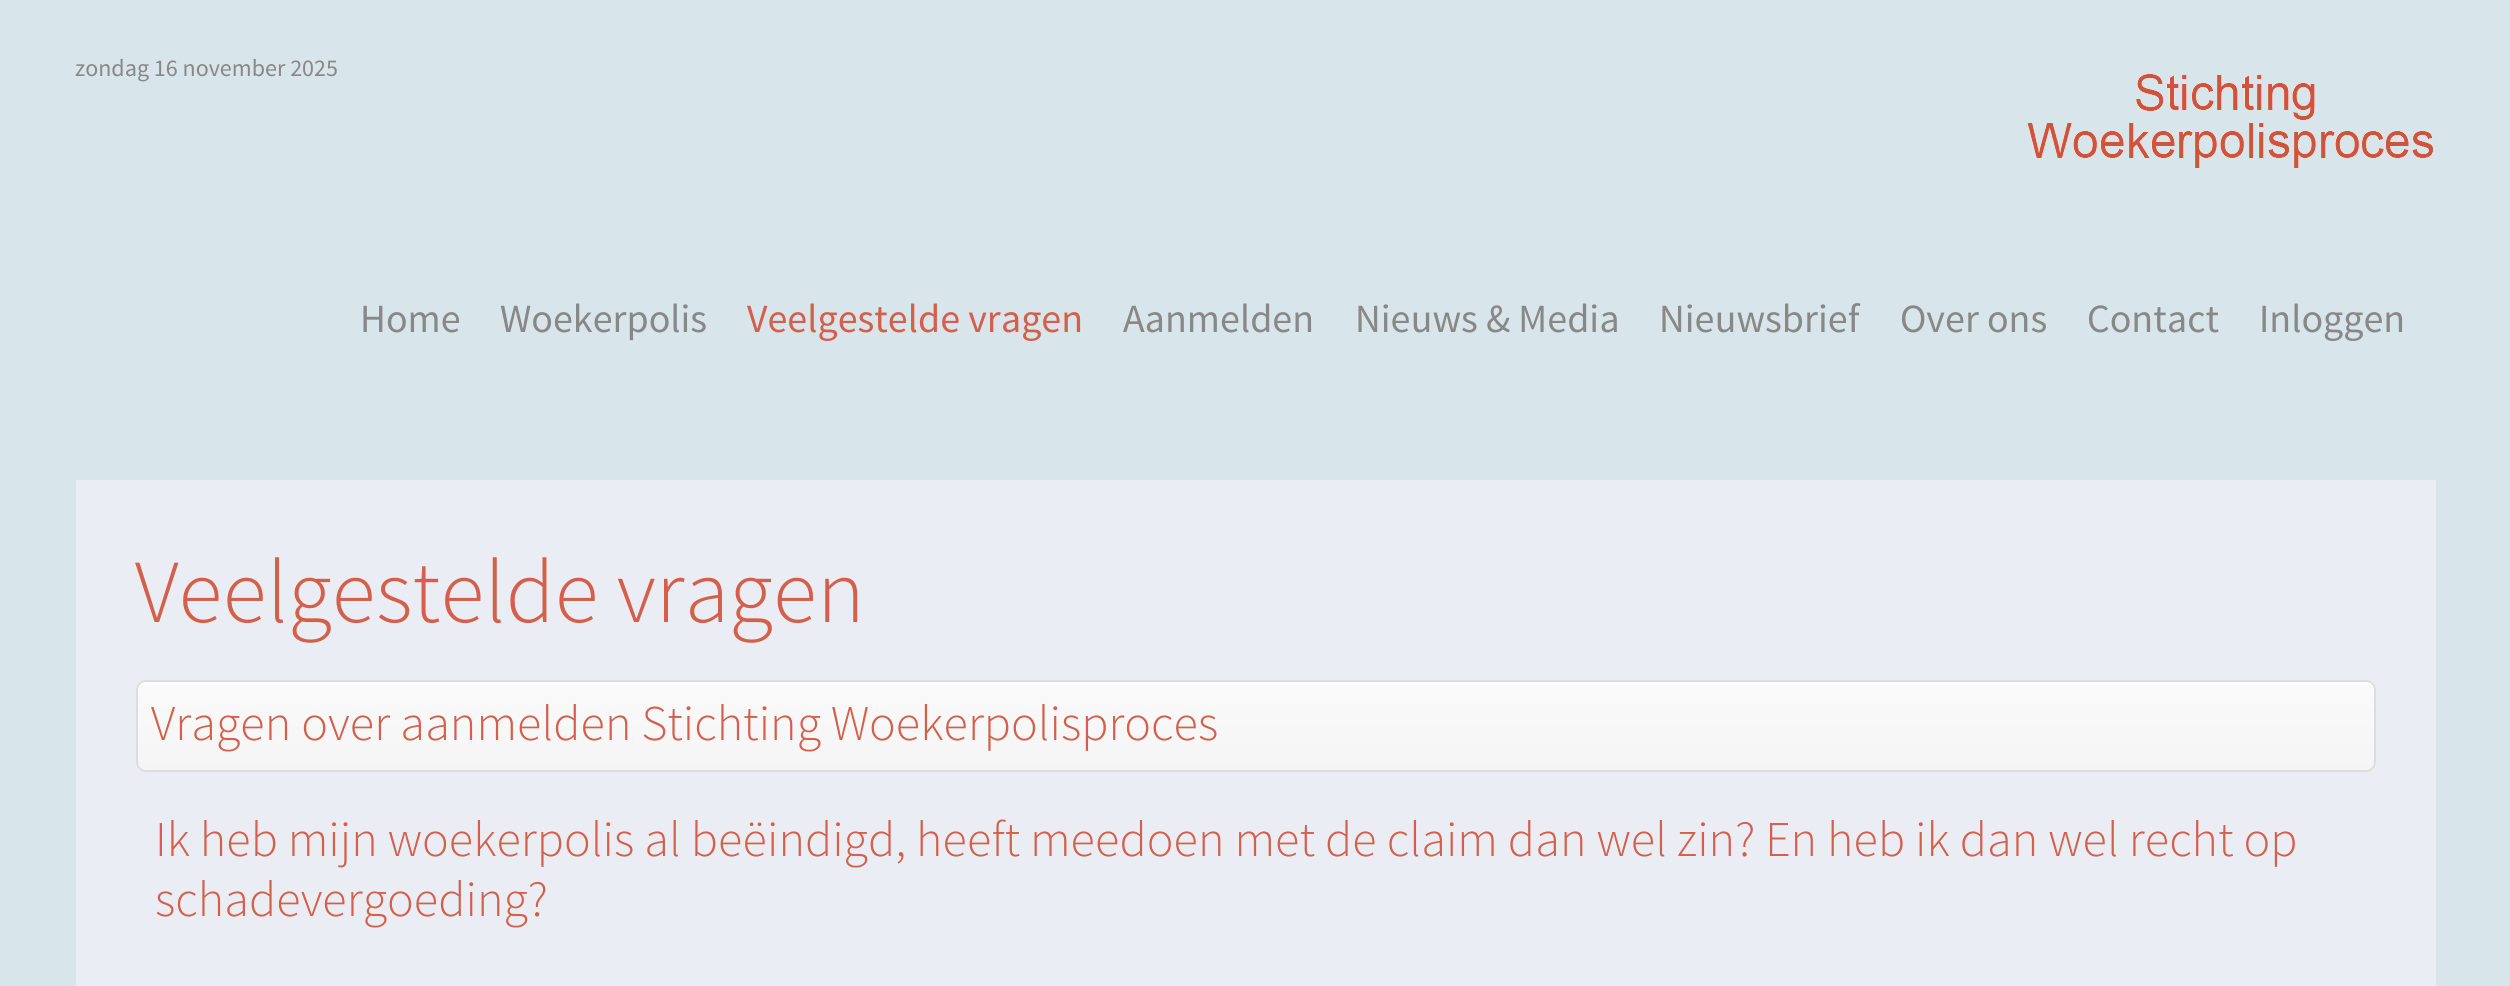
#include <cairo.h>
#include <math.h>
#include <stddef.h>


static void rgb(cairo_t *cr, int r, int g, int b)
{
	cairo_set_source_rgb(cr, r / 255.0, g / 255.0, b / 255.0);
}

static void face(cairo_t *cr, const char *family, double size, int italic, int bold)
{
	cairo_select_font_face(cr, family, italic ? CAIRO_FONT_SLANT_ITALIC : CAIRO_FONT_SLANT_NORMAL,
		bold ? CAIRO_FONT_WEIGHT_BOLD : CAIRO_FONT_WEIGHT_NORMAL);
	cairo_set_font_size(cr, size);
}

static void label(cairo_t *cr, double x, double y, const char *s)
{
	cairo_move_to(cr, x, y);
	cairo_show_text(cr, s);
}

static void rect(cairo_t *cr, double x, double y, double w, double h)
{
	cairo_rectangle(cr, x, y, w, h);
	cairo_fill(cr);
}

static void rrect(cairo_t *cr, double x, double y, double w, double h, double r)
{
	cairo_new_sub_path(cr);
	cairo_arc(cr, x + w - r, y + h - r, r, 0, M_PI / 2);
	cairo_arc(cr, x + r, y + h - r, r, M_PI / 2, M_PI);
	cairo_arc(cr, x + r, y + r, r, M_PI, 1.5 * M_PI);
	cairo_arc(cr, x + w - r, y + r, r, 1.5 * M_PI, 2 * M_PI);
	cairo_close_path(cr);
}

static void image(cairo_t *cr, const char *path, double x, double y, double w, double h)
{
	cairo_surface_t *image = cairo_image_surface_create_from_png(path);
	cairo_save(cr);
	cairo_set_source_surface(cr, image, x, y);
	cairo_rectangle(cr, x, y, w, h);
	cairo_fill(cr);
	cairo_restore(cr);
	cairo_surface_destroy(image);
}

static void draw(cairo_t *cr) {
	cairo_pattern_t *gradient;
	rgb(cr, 216, 229, 235);
	cairo_paint(cr);
	face(cr, "Source Sans Pro", 24, 0, 0);
	rgb(cr, 136, 136, 136);
	label(cr, 75, 76, "zondag 16 november 2025");
	image(cr, "image0.png", 2027, 74, 407, 94);
	face(cr, "Source Sans Pro", 40, 0, 0);
	label(cr, 360, 332, "Home");
	label(cr, 500, 332, "Woekerpolis");
	rgb(cr, 212, 95, 74);
	label(cr, 747, 332, "Veelgestelde vragen");
	rgb(cr, 136, 136, 136);
	label(cr, 1123, 332, "Aanmelden");
	label(cr, 1355, 332, "Nieuws & Media");
	label(cr, 1659, 332, "Nieuwsbrief");
	label(cr, 1900, 332, "Over ons");
	label(cr, 2087, 332, "Contact");
	label(cr, 2259, 332, "Inloggen");
	rgb(cr, 234, 238, 244);
	rect(cr, 76, 480, 2360, 506);
	face(cr, "Source Sans Pro Light", 90, 0, 0);
	rgb(cr, 212, 95, 74);
	label(cr, 135, 622, "Veelgestelde vragen");
	cairo_save(cr);
	rrect(cr, 136, 680, 2240, 92, 10);
	cairo_clip(cr);
	gradient = cairo_pattern_create_linear(1256, 682, 1256, 770);
	cairo_pattern_add_color_stop_rgba(gradient, 0, 0.98, 0.98, 0.98, 1);
	cairo_pattern_add_color_stop_rgba(gradient, 1, 0.961, 0.961, 0.961, 1);
	cairo_set_source(cr, gradient);
	cairo_pattern_destroy(gradient);
	rect(cr, 136, 682, 2240, 88);
	cairo_restore(cr);
	rgb(cr, 255, 255, 255);
	cairo_new_path(cr);
	cairo_move_to(cr, 146, 684);
	cairo_line_to(cr, 2366, 684);
	cairo_curve_to(cr, 2370, 684, 2374, 688, 2374, 692);
	cairo_curve_to(cr, 2374, 687, 2372, 682, 2366, 682);
	cairo_line_to(cr, 146, 682);
	cairo_curve_to(cr, 140, 682, 138, 687, 138, 692);
	cairo_curve_to(cr, 138, 688, 142, 684, 146, 684);
	cairo_close_path(cr);
	cairo_fill(cr);
	rrect(cr, 137, 681, 2238, 90, 9);
	rgb(cr, 221, 221, 221);
	cairo_stroke(cr);
	face(cr, "Source Sans Pro Light", 50, 0, 0);
	rgb(cr, 212, 95, 74);
	label(cr, 151, 740, "Vragen over aanmelden Stichting Woekerpolisproces");
	label(cr, 155, 856, "Ik heb mijn woekerpolis al beëindigd, heeft meedoen met de claim dan wel zin? En heb ik dan wel recht op");
	label(cr, 155, 916, "schadevergoeding?");
}

int main(void) {
	cairo_surface_t *surface = cairo_image_surface_create(CAIRO_FORMAT_RGB24, 2510, 986);
	cairo_t *cr = cairo_create(surface);
	cairo_font_options_t *options = cairo_font_options_create();
	cairo_font_options_set_hint_metrics(options, CAIRO_HINT_METRICS_OFF);
	cairo_font_options_set_hint_style(options, CAIRO_HINT_STYLE_NONE);
	cairo_set_font_options(cr, options);
	cairo_set_miter_limit(cr, 4);
	draw(cr);
	cairo_surface_write_to_png(surface, "render.png");
	cairo_font_options_destroy(options);
	cairo_destroy(cr);
	cairo_surface_destroy(surface);
	return 0;
}
